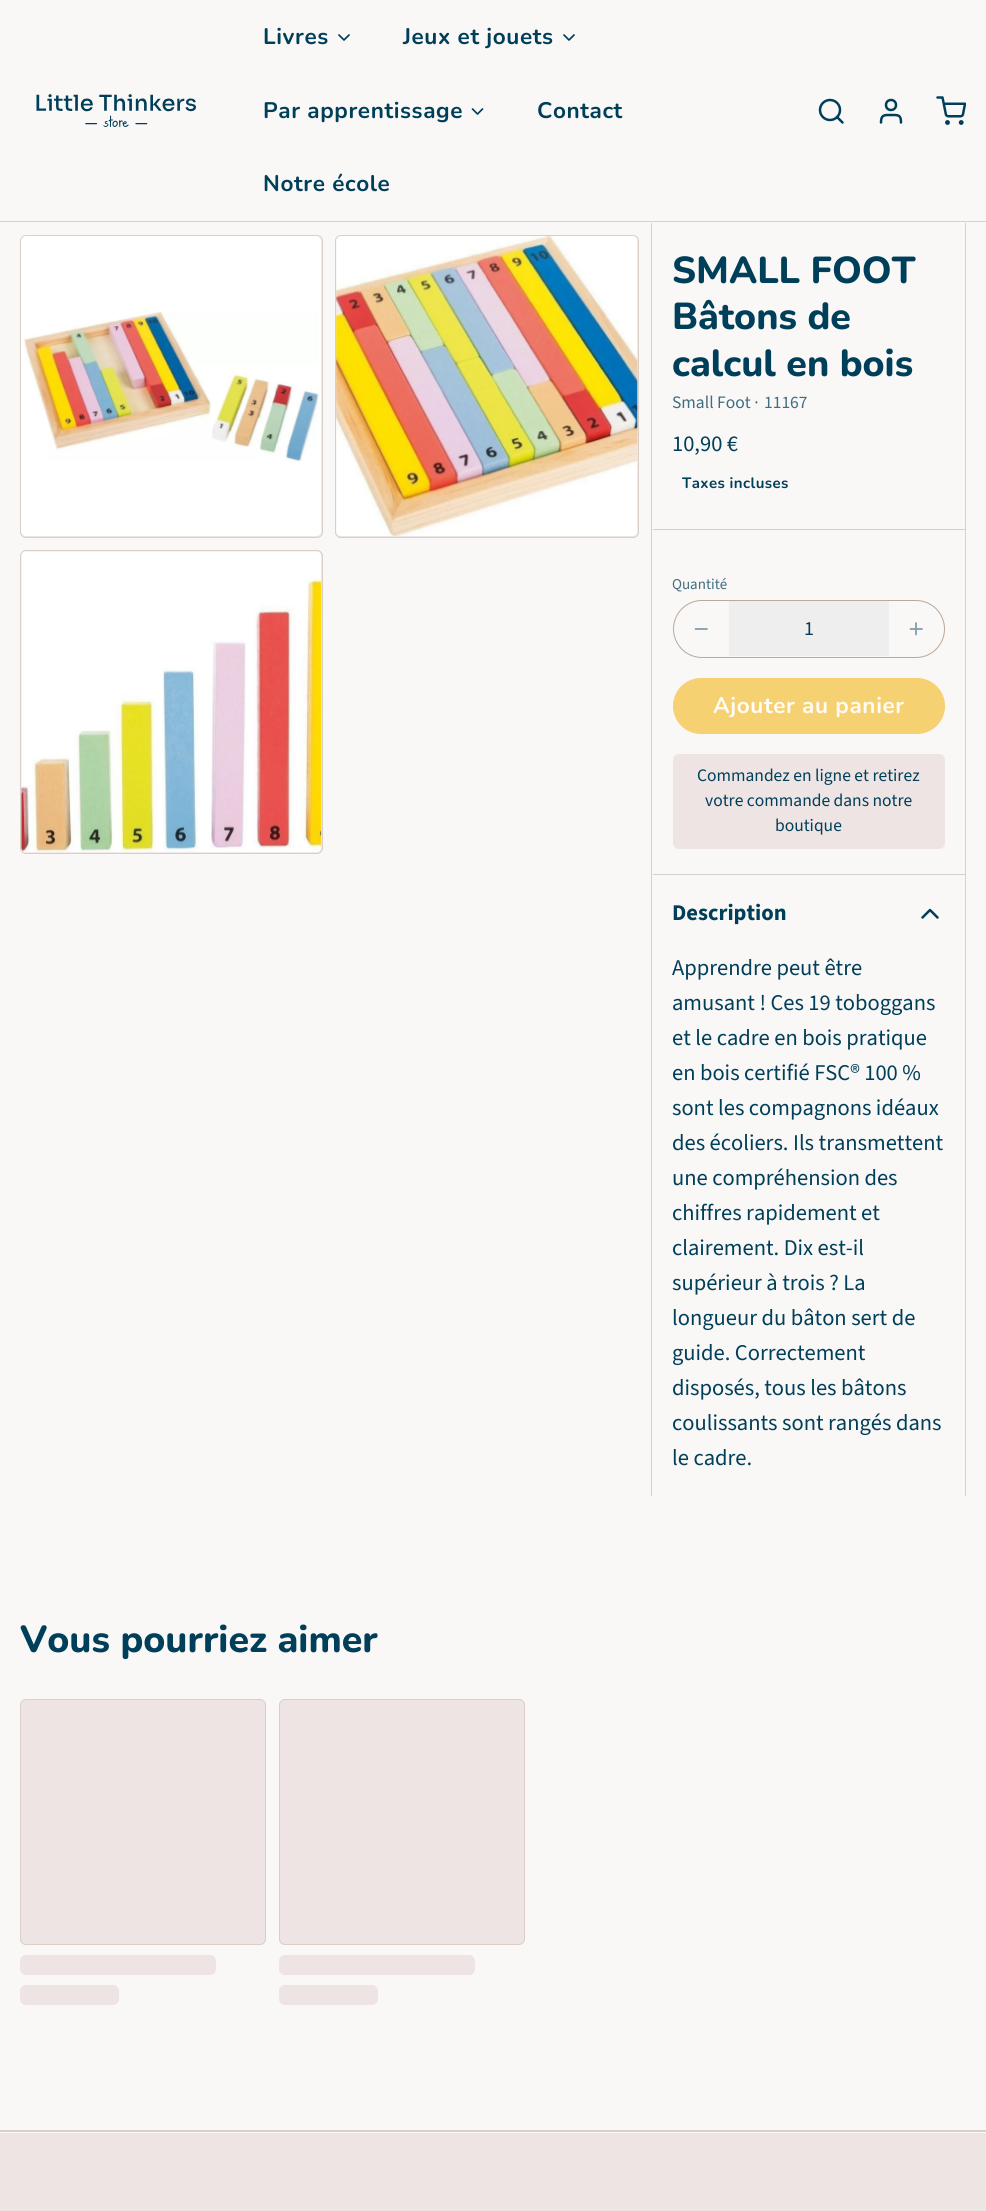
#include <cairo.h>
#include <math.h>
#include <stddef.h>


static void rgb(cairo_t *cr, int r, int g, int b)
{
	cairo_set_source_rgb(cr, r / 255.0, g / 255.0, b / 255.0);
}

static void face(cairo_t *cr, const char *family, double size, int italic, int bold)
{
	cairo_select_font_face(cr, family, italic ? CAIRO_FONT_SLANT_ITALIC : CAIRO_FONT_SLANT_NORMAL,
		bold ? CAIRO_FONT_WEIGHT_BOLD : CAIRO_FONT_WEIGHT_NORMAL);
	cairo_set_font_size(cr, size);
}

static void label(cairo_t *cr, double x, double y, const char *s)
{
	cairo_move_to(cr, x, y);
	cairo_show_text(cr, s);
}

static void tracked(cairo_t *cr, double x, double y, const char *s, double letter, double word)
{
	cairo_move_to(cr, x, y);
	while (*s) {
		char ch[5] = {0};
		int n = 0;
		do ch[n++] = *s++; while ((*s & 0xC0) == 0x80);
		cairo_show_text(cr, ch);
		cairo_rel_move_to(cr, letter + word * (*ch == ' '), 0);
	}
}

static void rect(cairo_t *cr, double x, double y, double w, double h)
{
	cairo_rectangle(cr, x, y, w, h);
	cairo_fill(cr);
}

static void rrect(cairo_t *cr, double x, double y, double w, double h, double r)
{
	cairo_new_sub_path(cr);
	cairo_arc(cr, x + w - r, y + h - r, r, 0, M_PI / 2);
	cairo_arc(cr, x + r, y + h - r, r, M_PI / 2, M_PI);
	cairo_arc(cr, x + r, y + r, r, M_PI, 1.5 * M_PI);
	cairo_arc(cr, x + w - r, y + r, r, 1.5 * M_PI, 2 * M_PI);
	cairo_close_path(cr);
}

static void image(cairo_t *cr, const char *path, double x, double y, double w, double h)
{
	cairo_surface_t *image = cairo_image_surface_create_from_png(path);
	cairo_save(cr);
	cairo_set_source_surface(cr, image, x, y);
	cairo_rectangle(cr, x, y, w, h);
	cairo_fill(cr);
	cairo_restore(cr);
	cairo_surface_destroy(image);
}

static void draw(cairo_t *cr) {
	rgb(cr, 250, 247, 247);
	cairo_paint(cr);
	rgb(cr, 217, 207, 198);
	rect(cr, 0, 221, 986, 1);
	image(cr, "image0.png", 36, 94, 160, 33);
	face(cr, "Nunito", 22.5, 0, 1);
	rgb(cr, 0, 63, 89);
	tracked(cr, 263, 44, "Livres", 0.6, 0);
	cairo_new_path(cr);
	cairo_move_to(cr, 339, 35);
	cairo_line_to(cr, 344, 40);
	cairo_line_to(cr, 349, 35);
	cairo_set_line_width(cr, 1.7);
	cairo_set_line_cap(cr, CAIRO_LINE_CAP_ROUND);
	cairo_set_line_join(cr, CAIRO_LINE_JOIN_ROUND);
	cairo_stroke(cr);
	tracked(cr, 403, 44, "Jeux et jouets", 0.6, 0);
	cairo_new_path(cr);
	cairo_move_to(cr, 564, 35);
	cairo_line_to(cr, 569, 40);
	cairo_line_to(cr, 574, 35);
	cairo_stroke(cr);
	tracked(cr, 263, 118, "Par apprentissage", 0.6, 0);
	cairo_new_path(cr);
	cairo_move_to(cr, 472.5, 109);
	cairo_line_to(cr, 477.5, 114);
	cairo_line_to(cr, 482.5, 109);
	cairo_stroke(cr);
	tracked(cr, 537, 118, "Contact", 0.6, 0);
	tracked(cr, 263, 191, "Notre école", 0.6, 0);
	cairo_new_path(cr);
	cairo_arc(cr, 830, 110, 10, 0, 2 * M_PI);
	cairo_set_line_width(cr, 2.5);
	cairo_set_line_cap(cr, CAIRO_LINE_CAP_BUTT);
	cairo_set_line_join(cr, CAIRO_LINE_JOIN_MITER);
	cairo_stroke(cr);
	cairo_new_path(cr);
	cairo_move_to(cr, 842.5, 122.5);
	cairo_line_to(cr, 837, 117);
	cairo_set_line_cap(cr, CAIRO_LINE_CAP_ROUND);
	cairo_set_line_join(cr, CAIRO_LINE_JOIN_ROUND);
	cairo_stroke(cr);
	cairo_new_path(cr);
	cairo_move_to(cr, 901, 122.5);
	cairo_curve_to(cr, 901, 114.5, 898, 115, 891, 115);
	cairo_curve_to(cr, 884.5, 115, 881, 114.5, 881, 122.5);
	cairo_stroke(cr);
	cairo_arc(cr, 891, 105, 5, 0, 2 * M_PI);
	cairo_set_line_cap(cr, CAIRO_LINE_CAP_BUTT);
	cairo_set_line_join(cr, CAIRO_LINE_JOIN_MITER);
	cairo_stroke(cr);
	image(cr, "image1.png", 936, 96, 30, 29);
	rgb(cr, 238, 228, 228);
	rrect(cr, 20.5, 235.5, 302, 302, 5.5);
	cairo_fill_preserve(cr);
	rgb(cr, 217, 207, 198);
	cairo_set_line_width(cr, 1);
	cairo_stroke(cr);
	rgb(cr, 238, 228, 228);
	rrect(cr, 21, 236, 300, 300, 5);
	cairo_fill(cr);
	image(cr, "image2.png", 21, 236, 301, 300);
	rrect(cr, 335.5, 235.5, 303, 302, 5.5);
	cairo_fill_preserve(cr);
	rgb(cr, 217, 207, 198);
	cairo_stroke(cr);
	rgb(cr, 238, 228, 228);
	rrect(cr, 336, 236, 302, 300, 5);
	cairo_fill(cr);
	image(cr, "image3.png", 336, 236, 302, 300);
	rrect(cr, 20.5, 550.5, 302, 303, 5.5);
	cairo_fill_preserve(cr);
	rgb(cr, 217, 207, 198);
	cairo_stroke(cr);
	rgb(cr, 238, 228, 228);
	rrect(cr, 21, 551, 300, 302, 5);
	cairo_fill(cr);
	image(cr, "image4.png", 21, 551, 301, 302);
	rgb(cr, 217, 207, 198);
	rect(cr, 965, 223, 1, 1273);
	rect(cr, 651, 223, 1, 1273);
	face(cr, "Nunito ExtraBold", 37.5, 0, 0);
	rgb(cr, 0, 63, 89);
	label(cr, 672, 283, "SMALL FOOT");
	label(cr, 672, 329, "Bâtons de");
	label(cr, 672, 376, "calcul en bois");
	face(cr, "Source Sans Pro", 17.5, 0, 0);
	rgb(cr, 63, 109, 129);
	label(cr, 672, 408, "Small Foot ·");
	label(cr, 764, 408, "11167");
	rgb(cr, 217, 207, 198);
	rect(cr, 653, 529, 312, 1);
	face(cr, "Source Sans Pro", 22.5, 0, 0);
	rgb(cr, 0, 63, 89);
	label(cr, 672, 451, "10,90 €");
	face(cr, "Nunito", 15, 0, 1);
	tracked(cr, 682, 488, "Taxes incluses", 0.4, 0);
	face(cr, "Source Sans Pro", 15, 0, 0);
	rgb(cr, 63, 109, 129);
	label(cr, 672, 589, "Quantité");
	rrect(cr, 673.5, 600.5, 271, 57, 28.5);
	rgb(cr, 186, 168, 152);
	cairo_stroke(cr);
	cairo_new_path(cr);
	cairo_move_to(cr, 695.5, 629);
	cairo_line_to(cr, 707, 629);
	rgb(cr, 125, 155, 168);
	cairo_set_line_width(cr, 1.7);
	cairo_set_line_cap(cr, CAIRO_LINE_CAP_ROUND);
	cairo_set_line_join(cr, CAIRO_LINE_JOIN_ROUND);
	cairo_stroke(cr);
	rgb(cr, 238, 238, 239);
	rect(cr, 729, 601, 160, 55);
	face(cr, "Source Sans Pro", 20, 0, 0);
	rgb(cr, 0, 63, 89);
	label(cr, 804, 635, "1");
	cairo_new_path(cr);
	cairo_move_to(cr, 916, 623);
	cairo_line_to(cr, 916, 634.5);
	cairo_move_to(cr, 910.5, 629);
	cairo_line_to(cr, 922, 629);
	rgb(cr, 125, 155, 168);
	cairo_stroke(cr);
	rgb(cr, 246, 209, 113);
	rrect(cr, 673.5, 678.5, 271, 55, 27.5);
	cairo_fill_preserve(cr);
	cairo_set_line_width(cr, 1);
	cairo_set_line_cap(cr, CAIRO_LINE_CAP_BUTT);
	cairo_set_line_join(cr, CAIRO_LINE_JOIN_MITER);
	cairo_stroke(cr);
	face(cr, "Nunito", 22.5, 0, 1);
	rgb(cr, 255, 251, 247);
	tracked(cr, 713, 713, "Ajouter au panier", 0.6, 0);
	rgb(cr, 238, 228, 228);
	rrect(cr, 673, 754, 272, 95, 6);
	cairo_fill(cr);
	face(cr, "Source Sans Pro", 17.5, 0, 0);
	rgb(cr, 0, 63, 89);
	label(cr, 697, 781, "Commandez en ligne et retirez");
	label(cr, 705, 806, "votre commande dans notre");
	label(cr, 775, 831, "boutique");
	rgb(cr, 217, 207, 198);
	rect(cr, 653, 874, 312, 1);
	face(cr, "Source Sans Pro", 22.5, 0, 1);
	rgb(cr, 0, 63, 89);
	label(cr, 672, 920, "Description");
	cairo_new_path(cr);
	cairo_move_to(cr, 937.5, 917.5);
	cairo_line_to(cr, 930, 910);
	cairo_line_to(cr, 922.5, 917.5);
	cairo_set_line_width(cr, 2.5);
	cairo_set_line_cap(cr, CAIRO_LINE_CAP_ROUND);
	cairo_set_line_join(cr, CAIRO_LINE_JOIN_ROUND);
	cairo_stroke(cr);
	face(cr, "Source Sans Pro", 22.5, 0, 0);
	label(cr, 672, 975, "Apprendre peut être");
	label(cr, 672, 1010, "amusant ! Ces 19 toboggans");
	label(cr, 672, 1045, "et le cadre en bois pratique");
	label(cr, 672, 1080, "en bois certifié FSC® 100 %");
	label(cr, 672, 1115, "sont les compagnons idéaux");
	label(cr, 672, 1150, "des écoliers. Ils transmettent");
	label(cr, 672, 1185, "une compréhension des");
	label(cr, 672, 1220, "chiffres rapidement et");
	label(cr, 672, 1255, "clairement. Dix est-il");
	label(cr, 672, 1290, "supérieur à trois ? La");
	label(cr, 672, 1325, "longueur du bâton sert de");
	label(cr, 672, 1360, "guide. Correctement");
	label(cr, 672, 1395, "disposés, tous les bâtons");
	label(cr, 672, 1430, "coulissants sont rangés dans");
	label(cr, 672, 1465, "le cadre.");
	face(cr, "Nunito ExtraBold", 37.5, 0, 0);
	label(cr, 20, 1652, "Vous pourriez aimer");
	rgb(cr, 238, 228, 228);
	rrect(cr, 20.5, 1699.5, 245, 245, 5.5);
	cairo_fill_preserve(cr);
	rgb(cr, 217, 207, 198);
	cairo_set_line_width(cr, 1);
	cairo_set_line_cap(cr, CAIRO_LINE_CAP_BUTT);
	cairo_set_line_join(cr, CAIRO_LINE_JOIN_MITER);
	cairo_stroke(cr);
	rgb(cr, 238, 228, 228);
	rrect(cr, 20, 1955, 196, 20, 6);
	cairo_fill(cr);
	rrect(cr, 20, 1985, 99, 20, 6);
	cairo_fill(cr);
	rrect(cr, 279.5, 1699.5, 245, 245, 5.5);
	cairo_fill_preserve(cr);
	rgb(cr, 217, 207, 198);
	cairo_stroke(cr);
	rgb(cr, 238, 228, 228);
	rrect(cr, 279, 1955, 196, 20, 6);
	cairo_fill(cr);
	rrect(cr, 279, 1985, 99, 20, 6);
	cairo_fill(cr);
	rgb(cr, 217, 207, 198);
	rect(cr, 0, 2130, 986, 2);
	rgb(cr, 238, 228, 228);
	rect(cr, 0, 2133, 986, 78);
}

int main(void) {
	cairo_surface_t *surface = cairo_image_surface_create(CAIRO_FORMAT_RGB24, 986, 2211);
	cairo_t *cr = cairo_create(surface);
	cairo_font_options_t *options = cairo_font_options_create();
	cairo_font_options_set_hint_metrics(options, CAIRO_HINT_METRICS_OFF);
	cairo_font_options_set_hint_style(options, CAIRO_HINT_STYLE_NONE);
	cairo_set_font_options(cr, options);
	cairo_set_miter_limit(cr, 4);
	draw(cr);
	cairo_surface_write_to_png(surface, "render.png");
	cairo_font_options_destroy(options);
	cairo_destroy(cr);
	cairo_surface_destroy(surface);
	return 0;
}
